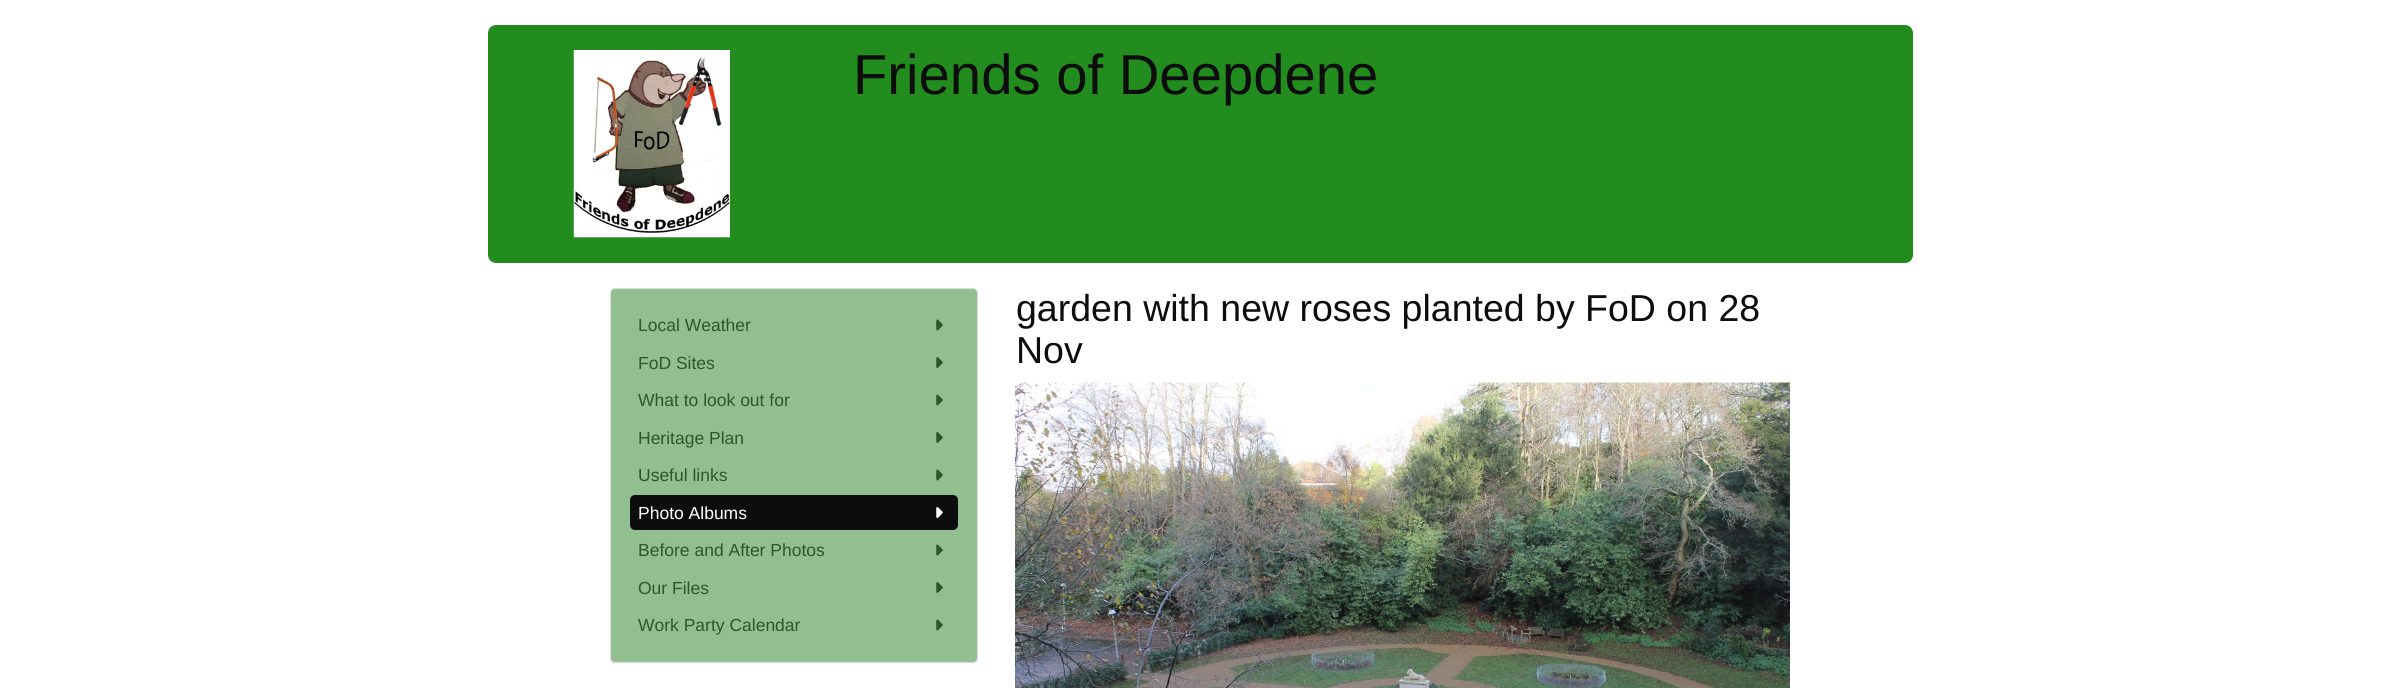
#include <cairo.h>
#include <math.h>
#include <stddef.h>


static void rgb(cairo_t *cr, int r, int g, int b)
{
	cairo_set_source_rgb(cr, r / 255.0, g / 255.0, b / 255.0);
}

static void face(cairo_t *cr, const char *family, double size, int italic, int bold)
{
	cairo_select_font_face(cr, family, italic ? CAIRO_FONT_SLANT_ITALIC : CAIRO_FONT_SLANT_NORMAL,
		bold ? CAIRO_FONT_WEIGHT_BOLD : CAIRO_FONT_WEIGHT_NORMAL);
	cairo_set_font_size(cr, size);
}

static void label(cairo_t *cr, double x, double y, const char *s)
{
	cairo_move_to(cr, x, y);
	cairo_show_text(cr, s);
}

static void rrect(cairo_t *cr, double x, double y, double w, double h, double r)
{
	cairo_new_sub_path(cr);
	cairo_arc(cr, x + w - r, y + h - r, r, 0, M_PI / 2);
	cairo_arc(cr, x + r, y + h - r, r, M_PI / 2, M_PI);
	cairo_arc(cr, x + r, y + r, r, M_PI, 1.5 * M_PI);
	cairo_arc(cr, x + w - r, y + r, r, 1.5 * M_PI, 2 * M_PI);
	cairo_close_path(cr);
}

static void soft_shadow(cairo_t *cr, double x, double y, double w, double h, double r, double blur, double alpha)
{
	cairo_push_group_with_content(cr, CAIRO_CONTENT_ALPHA);
	cairo_set_operator(cr, CAIRO_OPERATOR_SOURCE);
	for (int i = 15; i >= -15 && fmin(w, h) + blur * i / 3 > 0; i -= 2) {
		double e = blur * i / 6;
		cairo_set_source_rgba(cr, 0, 0, 0, alpha * erfc((i - 1) / 8.5) / 2);
		rrect(cr, x - e, y - e, w + 2 * e, h + 2 * e, fmax(0, fmin(r + e + blur * .6, fmin(w, h) / 2 + e)));
		cairo_fill(cr);
	}
	cairo_pattern_t *soft = cairo_pop_group(cr);
	cairo_mask(cr, soft);
	cairo_pattern_destroy(soft);
}

static void image(cairo_t *cr, const char *path, double x, double y, double w, double h)
{
	cairo_surface_t *image = cairo_image_surface_create_from_png(path);
	cairo_save(cr);
	cairo_set_source_surface(cr, image, x, y);
	cairo_rectangle(cr, x, y, w, h);
	cairo_fill(cr);
	cairo_restore(cr);
	cairo_surface_destroy(image);
}

static void draw(cairo_t *cr) {
	rgb(cr, 255, 255, 255);
	cairo_paint(cr);
	rgb(cr, 35, 140, 31);
	rrect(cr, 488, 25, 1425, 238, 8);
	cairo_fill(cr);
	image(cr, "image0.png", 573, 50, 157, 188);
	face(cr, "Liberation Sans", 56.25, 0, 0);
	rgb(cr, 13, 13, 13);
	label(cr, 853, 94, "Friends of Deepdene");
	rgb(cr, 0, 0, 0);
	soft_shadow(cr, 610, 289, 368, 375, 5, 0.5, 0.05);
	rgb(cr, 145, 191, 143);
	rrect(cr, 610.5, 288.5, 367, 374, 4.5);
	cairo_fill_preserve(cr);
	rgb(cr, 221, 221, 221);
	cairo_set_line_width(cr, 1);
	cairo_stroke(cr);
	face(cr, "Liberation Sans", 17.5, 0, 0);
	rgb(cr, 43, 88, 43);
	label(cr, 638, 331, "Local Weather");
	image(cr, "image1.png", 936, 319, 7, 12);
	label(cr, 638, 369, "FoD Sites");
	image(cr, "image2.png", 936, 357, 7, 11);
	label(cr, 638, 406, "What to look out for");
	image(cr, "image1.png", 936, 394, 7, 12);
	label(cr, 638, 444, "Heritage Plan");
	image(cr, "image2.png", 936, 432, 7, 11);
	label(cr, 638, 481, "Useful links");
	image(cr, "image1.png", 936, 469, 7, 12);
	rgb(cr, 13, 13, 13);
	rrect(cr, 630, 495, 328, 35, 5);
	cairo_fill(cr);
	rgb(cr, 255, 255, 255);
	label(cr, 638, 519, "Photo Albums");
	image(cr, "image3.png", 936, 507, 7, 11);
	rgb(cr, 43, 88, 43);
	label(cr, 638, 556, "Before and After Photos");
	image(cr, "image1.png", 936, 544, 7, 12);
	label(cr, 638, 594, "Our Files");
	image(cr, "image2.png", 936, 582, 7, 11);
	label(cr, 638, 631, "Work Party Calendar");
	image(cr, "image1.png", 936, 619, 7, 12);
	face(cr, "Liberation Sans", 37.5, 0, 0);
	rgb(cr, 13, 13, 13);
	label(cr, 1016, 321, "garden with new roses planted by FoD on 28");
	label(cr, 1016, 363, "Nov");
	image(cr, "image4.png", 1015, 382, 775, 306);
}

int main(void) {
	cairo_surface_t *surface = cairo_image_surface_create(CAIRO_FORMAT_RGB24, 2400, 688);
	cairo_t *cr = cairo_create(surface);
	cairo_font_options_t *options = cairo_font_options_create();
	cairo_font_options_set_hint_metrics(options, CAIRO_HINT_METRICS_OFF);
	cairo_font_options_set_hint_style(options, CAIRO_HINT_STYLE_NONE);
	cairo_set_font_options(cr, options);
	cairo_set_miter_limit(cr, 4);
	draw(cr);
	cairo_surface_write_to_png(surface, "render.png");
	cairo_font_options_destroy(options);
	cairo_destroy(cr);
	cairo_surface_destroy(surface);
	return 0;
}
